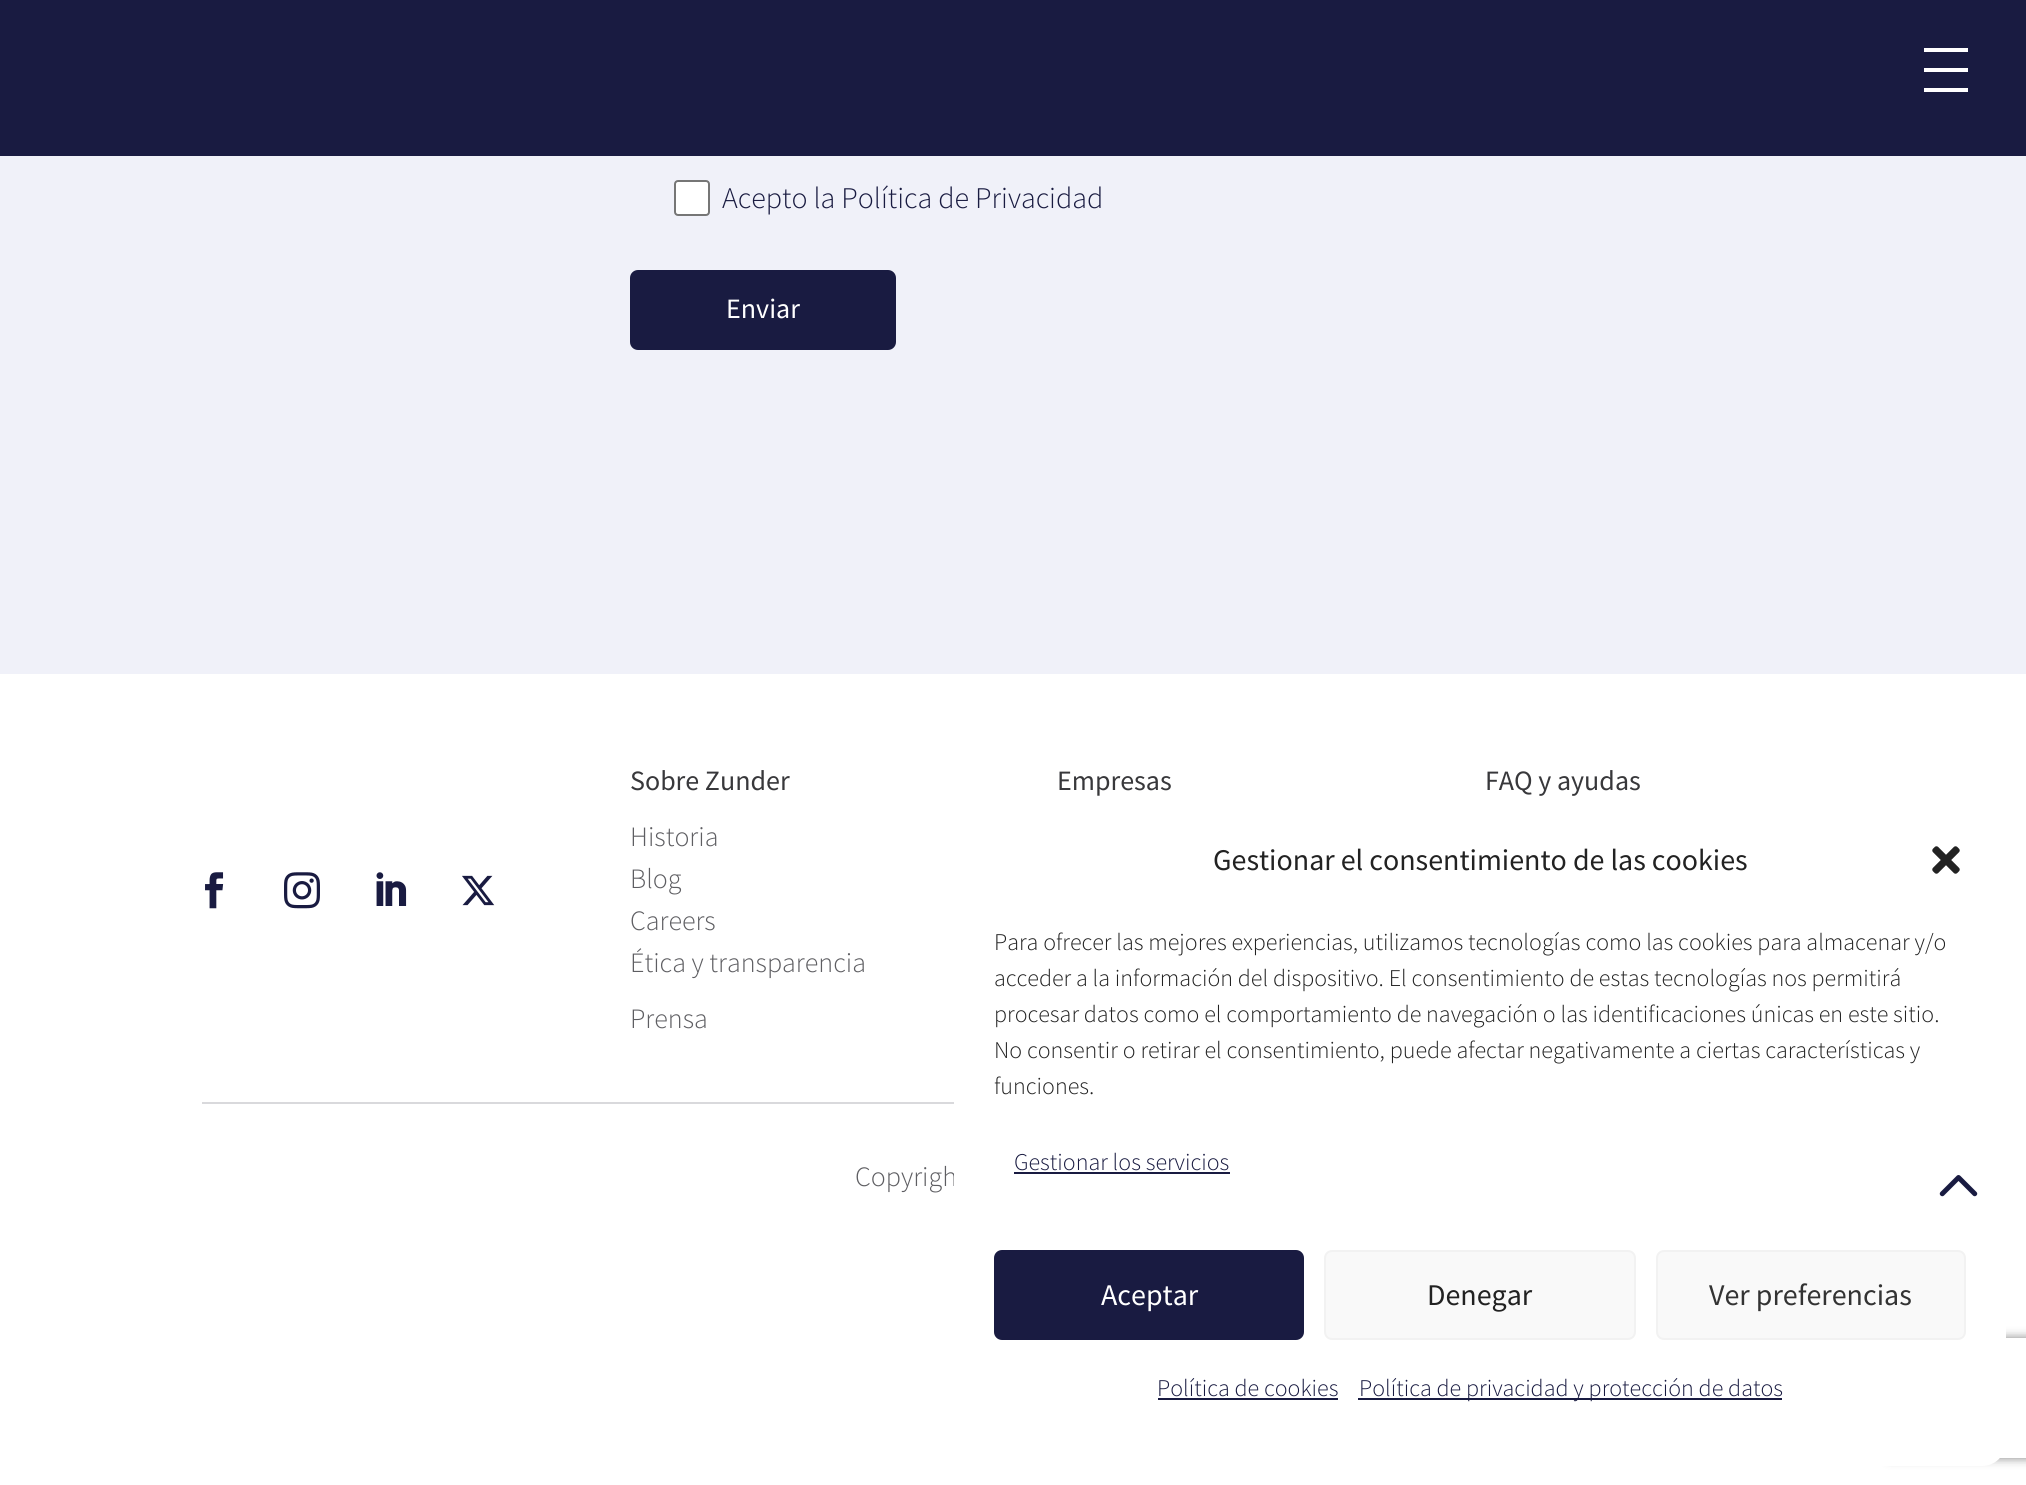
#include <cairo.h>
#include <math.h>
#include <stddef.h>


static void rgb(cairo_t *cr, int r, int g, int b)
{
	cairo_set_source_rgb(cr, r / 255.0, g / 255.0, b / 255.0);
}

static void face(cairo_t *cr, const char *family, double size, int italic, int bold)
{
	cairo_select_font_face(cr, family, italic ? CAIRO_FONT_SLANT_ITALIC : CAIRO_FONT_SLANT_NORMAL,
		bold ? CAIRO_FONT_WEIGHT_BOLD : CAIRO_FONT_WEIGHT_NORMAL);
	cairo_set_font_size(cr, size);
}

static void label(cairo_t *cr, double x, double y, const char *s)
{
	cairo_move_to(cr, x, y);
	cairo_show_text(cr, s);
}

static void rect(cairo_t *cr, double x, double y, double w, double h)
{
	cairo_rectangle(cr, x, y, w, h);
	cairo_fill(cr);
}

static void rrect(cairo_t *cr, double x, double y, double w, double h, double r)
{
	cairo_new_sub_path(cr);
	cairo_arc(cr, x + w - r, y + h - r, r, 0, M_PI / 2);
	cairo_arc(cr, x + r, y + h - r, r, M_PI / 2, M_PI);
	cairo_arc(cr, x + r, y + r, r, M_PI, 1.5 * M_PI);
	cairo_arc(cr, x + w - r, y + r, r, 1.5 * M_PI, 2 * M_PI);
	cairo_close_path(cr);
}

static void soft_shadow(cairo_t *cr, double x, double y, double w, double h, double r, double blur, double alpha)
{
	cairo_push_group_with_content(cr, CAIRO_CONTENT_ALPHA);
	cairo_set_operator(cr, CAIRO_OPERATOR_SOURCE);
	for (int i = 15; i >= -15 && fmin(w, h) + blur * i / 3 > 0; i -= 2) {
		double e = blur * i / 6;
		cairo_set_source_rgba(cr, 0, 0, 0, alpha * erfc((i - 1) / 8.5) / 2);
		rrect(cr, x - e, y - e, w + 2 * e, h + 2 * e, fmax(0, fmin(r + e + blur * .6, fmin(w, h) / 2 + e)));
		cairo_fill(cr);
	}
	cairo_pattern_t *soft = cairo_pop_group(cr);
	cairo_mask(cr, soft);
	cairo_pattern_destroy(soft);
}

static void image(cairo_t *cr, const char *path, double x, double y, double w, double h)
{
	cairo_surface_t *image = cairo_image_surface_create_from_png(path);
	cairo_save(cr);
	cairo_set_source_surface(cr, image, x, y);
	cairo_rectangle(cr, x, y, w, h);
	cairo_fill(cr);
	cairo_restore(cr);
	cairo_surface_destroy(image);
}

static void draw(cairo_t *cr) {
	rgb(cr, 255, 255, 255);
	cairo_paint(cr);
	rgb(cr, 25, 27, 65);
	rect(cr, 0, 0, 2026, 156);
	rgb(cr, 255, 255, 255);
	rect(cr, 1924, 48, 44, 4);
	rect(cr, 1924, 68, 44, 4);
	rect(cr, 1924, 88, 44, 4);
	rgb(cr, 240, 241, 249);
	rect(cr, 0, 156, 2026, 518);
	rgb(cr, 255, 255, 255);
	rrect(cr, 675, 181, 34, 34, 3);
	cairo_fill_preserve(cr);
	rgb(cr, 118, 118, 118);
	cairo_stroke(cr);
	face(cr, "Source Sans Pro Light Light", 30, 0, 0);
	rgb(cr, 25, 27, 65);
	label(cr, 722, 208, "Acepto la Política de Privacidad");
	rrect(cr, 630, 270, 266, 80, 8);
	cairo_fill(cr);
	face(cr, "Source Sans Pro", 28, 0, 0);
	rgb(cr, 255, 255, 255);
	label(cr, 726, 318, "Enviar");
	rgb(cr, 217, 217, 220);
	rect(cr, 202, 1102, 752, 2);
	rgb(cr, 56, 56, 59);
	label(cr, 630, 790, "Sobre Zunder");
	face(cr, "Source Sans Pro Light Light", 28, 0, 0);
	rgb(cr, 94, 94, 98);
	label(cr, 630, 846, "Historia");
	label(cr, 630, 888, "Blog");
	label(cr, 630, 930, "Careers");
	label(cr, 630, 972, "Ética y transparencia");
	label(cr, 630, 1028, "Prensa");
	face(cr, "Source Sans Pro", 28, 0, 0);
	rgb(cr, 56, 56, 59);
	label(cr, 1057, 790, "Empresas");
	label(cr, 1485, 790, "FAQ y ayudas");
	image(cr, "image0.png", 205, 872, 19, 37);
	image(cr, "image1.png", 284, 872, 36, 37);
	image(cr, "image2.png", 376, 872, 31, 34);
	image(cr, "image3.png", 462, 875, 33, 31);
	face(cr, "Source Sans Pro Light Light", 28, 0, 0);
	rgb(cr, 94, 94, 98);
	label(cr, 855, 1186, "Copyrigh");
	cairo_save(cr);
	cairo_set_fill_rule(cr, CAIRO_FILL_RULE_EVEN_ODD);
	cairo_new_path(cr);
	cairo_move_to(cr, 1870, 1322);
	cairo_line_to(cr, 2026, 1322);
	cairo_line_to(cr, 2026, 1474);
	cairo_line_to(cr, 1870, 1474);
	cairo_close_path(cr);
	cairo_move_to(cr, 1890, 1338);
	cairo_line_to(cr, 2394, 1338);
	cairo_curve_to(cr, 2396, 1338, 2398, 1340, 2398, 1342);
	cairo_line_to(cr, 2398, 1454);
	cairo_curve_to(cr, 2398, 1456, 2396, 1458, 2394, 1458);
	cairo_line_to(cr, 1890, 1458);
	cairo_curve_to(cr, 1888, 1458, 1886, 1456, 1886, 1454);
	cairo_line_to(cr, 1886, 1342);
	cairo_curve_to(cr, 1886, 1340, 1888, 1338, 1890, 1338);
	cairo_close_path(cr);
	cairo_clip(cr);
	rgb(cr, 128, 128, 128);
	soft_shadow(cr, 1886, 1338, 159, 120, 4, 5, 1);
	cairo_restore(cr);
	rgb(cr, 255, 255, 255);
	rrect(cr, 954, 806, 1052, 660, 24);
	cairo_fill(cr);
	face(cr, "Source Sans Pro", 30, 0, 0);
	rgb(cr, 34, 34, 34);
	label(cr, 1213, 870, "Gestionar el consentimiento de las cookies");
	image(cr, "image4.png", 1932, 846, 28, 28);
	face(cr, "Source Sans Pro Light Light", 24, 0, 0);
	label(cr, 994, 950, "Para ofrecer las mejores experiencias, utilizamos tecnologías como las cookies para almacenar y/o");
	label(cr, 994, 986, "acceder a la información del dispositivo. El consentimiento de estas tecnologías nos permitirá");
	label(cr, 994, 1022, "procesar datos como el comportamiento de navegación o las identificaciones únicas en este sitio.");
	label(cr, 994, 1058, "No consentir o retirar el consentimiento, puede afectar negativamente a ciertas características y");
	label(cr, 994, 1094, "funciones.");
	rgb(cr, 25, 27, 65);
	label(cr, 1014, 1170, "Gestionar los servicios");
	rect(cr, 1014, 1172, 216, 2);
	rrect(cr, 995, 1251, 308, 88, 7);
	cairo_fill_preserve(cr);
	cairo_stroke(cr);
	face(cr, "Source Sans Pro", 30, 0, 0);
	rgb(cr, 255, 255, 255);
	label(cr, 1101, 1305, "Aceptar");
	rgb(cr, 249, 249, 249);
	rrect(cr, 1325, 1251, 310, 88, 7);
	cairo_fill_preserve(cr);
	rgb(cr, 242, 242, 242);
	cairo_stroke(cr);
	rgb(cr, 34, 34, 34);
	label(cr, 1427, 1305, "Denegar");
	rgb(cr, 249, 249, 249);
	rrect(cr, 1657, 1251, 308, 88, 7);
	cairo_fill_preserve(cr);
	rgb(cr, 242, 242, 242);
	cairo_stroke(cr);
	rgb(cr, 51, 51, 51);
	label(cr, 1709, 1305, "Ver preferencias");
	face(cr, "Source Sans Pro Light Light", 24, 0, 0);
	rgb(cr, 25, 27, 65);
	label(cr, 1157, 1396, "Política de cookies");
	rect(cr, 1158, 1398, 180, 2);
	rect(cr, 1358, 1398, 424, 2);
	label(cr, 1359, 1396, "Política de privacidad y protección de datos");
	image(cr, "image5.png", 1939, 1175, 39, 22);
}

int main(void) {
	cairo_surface_t *surface = cairo_image_surface_create(CAIRO_FORMAT_RGB24, 2026, 1485);
	cairo_t *cr = cairo_create(surface);
	cairo_font_options_t *options = cairo_font_options_create();
	cairo_font_options_set_hint_metrics(options, CAIRO_HINT_METRICS_OFF);
	cairo_font_options_set_hint_style(options, CAIRO_HINT_STYLE_NONE);
	cairo_set_font_options(cr, options);
	cairo_set_miter_limit(cr, 4);
	draw(cr);
	cairo_surface_write_to_png(surface, "render.png");
	cairo_font_options_destroy(options);
	cairo_destroy(cr);
	cairo_surface_destroy(surface);
	return 0;
}
